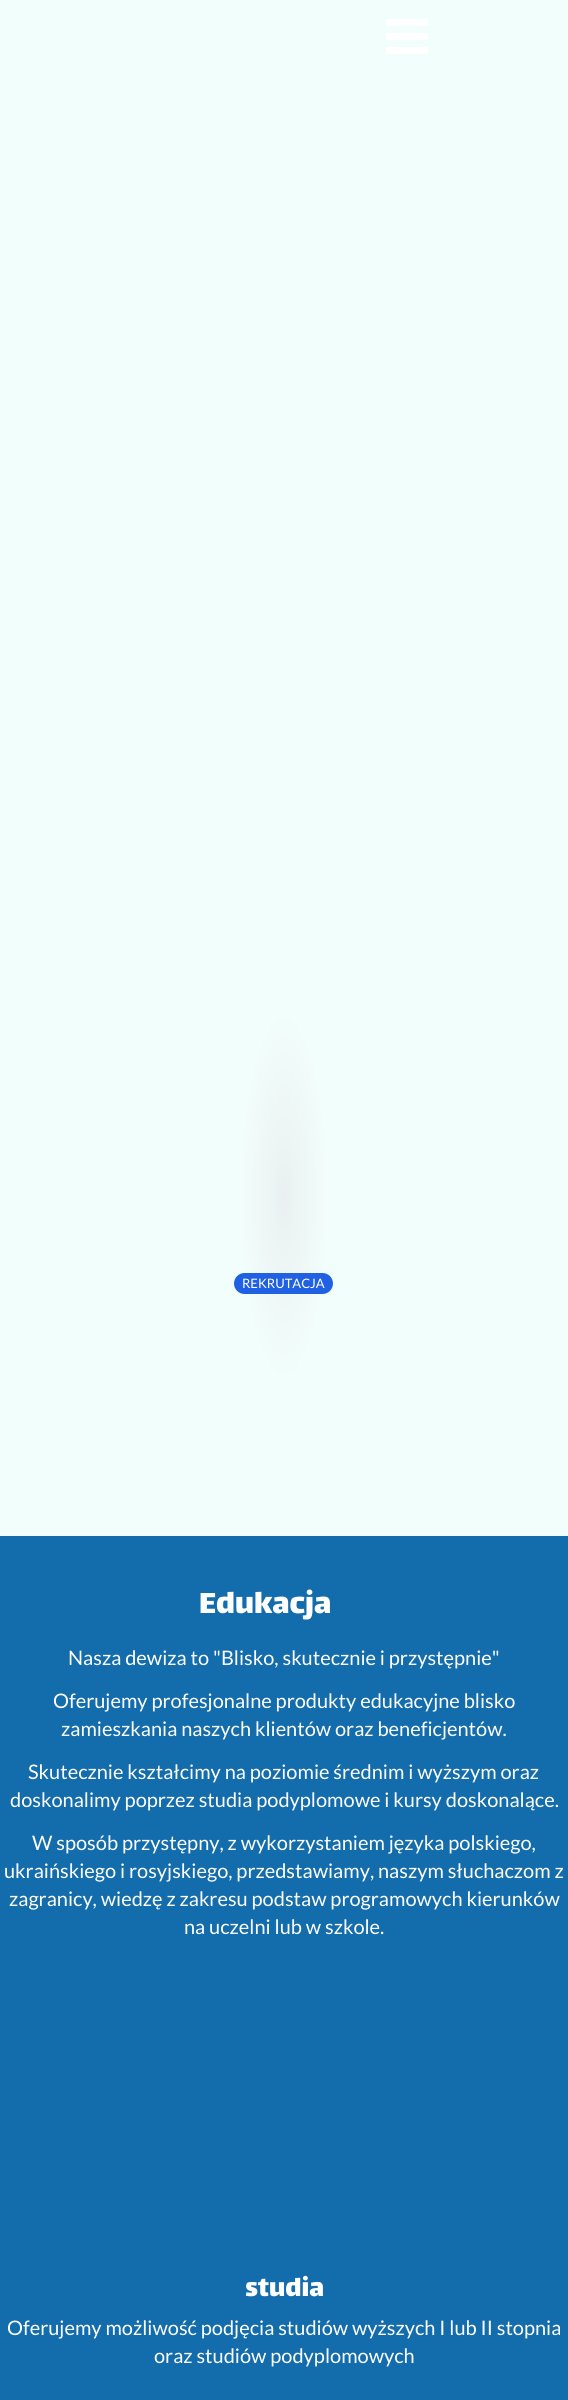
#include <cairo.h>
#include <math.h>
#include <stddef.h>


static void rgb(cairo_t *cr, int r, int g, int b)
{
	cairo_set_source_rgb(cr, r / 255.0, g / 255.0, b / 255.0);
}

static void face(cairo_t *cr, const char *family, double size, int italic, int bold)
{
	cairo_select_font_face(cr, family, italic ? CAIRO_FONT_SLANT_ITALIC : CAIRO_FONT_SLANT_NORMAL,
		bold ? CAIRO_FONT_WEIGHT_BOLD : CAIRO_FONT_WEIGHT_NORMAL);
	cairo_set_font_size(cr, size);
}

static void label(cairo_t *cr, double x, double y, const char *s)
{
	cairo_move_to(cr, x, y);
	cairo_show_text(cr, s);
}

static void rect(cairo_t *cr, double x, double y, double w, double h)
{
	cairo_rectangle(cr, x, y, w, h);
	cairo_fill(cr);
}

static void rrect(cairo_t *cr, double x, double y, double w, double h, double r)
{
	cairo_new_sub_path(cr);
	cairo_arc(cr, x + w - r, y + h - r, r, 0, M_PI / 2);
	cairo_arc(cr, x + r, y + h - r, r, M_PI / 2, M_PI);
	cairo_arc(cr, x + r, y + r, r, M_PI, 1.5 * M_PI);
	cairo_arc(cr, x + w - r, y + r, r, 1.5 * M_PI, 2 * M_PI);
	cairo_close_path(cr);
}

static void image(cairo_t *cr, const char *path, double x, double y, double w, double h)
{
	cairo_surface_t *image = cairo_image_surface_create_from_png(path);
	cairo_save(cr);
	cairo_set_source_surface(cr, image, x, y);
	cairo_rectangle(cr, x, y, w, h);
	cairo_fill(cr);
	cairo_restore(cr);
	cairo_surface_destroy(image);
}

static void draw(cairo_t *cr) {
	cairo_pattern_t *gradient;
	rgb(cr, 255, 255, 255);
	cairo_paint(cr);
	gradient = cairo_pattern_create_radial(0, 0, 0, 0, 0, 1);
	cairo_pattern_set_matrix(gradient, &(cairo_matrix_t){1.0 / 402, 0, 0, 1.0 / 1697, -1.0 * 284 / 402, -1.0 * 1200 / 1697});
	cairo_pattern_add_color_stop_rgba(gradient, 0, 0.918, 0.941, 0.945, 1);
	cairo_pattern_add_color_stop_rgba(gradient, 0.11, 0.949, 0.996, 0.988, 1);
	cairo_set_source(cr, gradient);
	cairo_pattern_destroy(gradient);
	rect(cr, 0, 0, 568, 1536);
	image(cr, "image0.png", 386, 19, 42, 35);
	rgb(cr, 32, 97, 227);
	rrect(cr, 234, 1273, 99, 21, 10.5);
	cairo_fill(cr);
	face(cr, "Lato", 13, 0, 0);
	rgb(cr, 255, 255, 255);
	label(cr, 242, 1288, "REKRUTACJA");
	rgb(cr, 19, 108, 171);
	rect(cr, 0, 1536, 568, 864);
	face(cr, "Lalezar", 35, 0, 0);
	rgb(cr, 255, 255, 255);
	label(cr, 199, 1613, "Edukacja");
	face(cr, "Lato", 20, 0, 0);
	label(cr, 68, 1665, "Nasza dewiza to \"Blisko, skutecznie i przystępnie\"");
	label(cr, 53, 1708, "Oferujemy profesjonalne produkty edukacyjne blisko");
	label(cr, 61, 1736, "zamieszkania naszych klientów oraz beneficjentów.");
	label(cr, 28, 1779, "Skutecznie kształcimy na poziomie średnim i wyższym oraz");
	label(cr, 10, 1807, "doskonalimy poprzez studia podyplomowe i kursy doskonalące.");
	label(cr, 32, 1850, "W sposób przystępny, z wykorzystaniem języka polskiego,");
	label(cr, 4, 1878, "ukraińskiego i rosyjskiego, przedstawiamy, naszym słuchaczom z");
	label(cr, 9, 1906, "zagranicy, wiedzę z zakresu podstaw programowych kierunków");
	label(cr, 184, 1934, "na uczelni lub w szkole.");
	face(cr, "Lalezar", 30, 0, 0);
	label(cr, 245, 2296, "studia");
	face(cr, "Lato", 20, 0, 0);
	label(cr, 7, 2335, "Oferujemy możliwość podjęcia studiów wyższych I lub II stopnia");
	label(cr, 154, 2363, "oraz studiów podyplomowych");
}

int main(void) {
	cairo_surface_t *surface = cairo_image_surface_create(CAIRO_FORMAT_RGB24, 568, 2400);
	cairo_t *cr = cairo_create(surface);
	cairo_font_options_t *options = cairo_font_options_create();
	cairo_font_options_set_hint_metrics(options, CAIRO_HINT_METRICS_OFF);
	cairo_font_options_set_hint_style(options, CAIRO_HINT_STYLE_NONE);
	cairo_set_font_options(cr, options);
	cairo_set_miter_limit(cr, 4);
	draw(cr);
	cairo_surface_write_to_png(surface, "render.png");
	cairo_font_options_destroy(options);
	cairo_destroy(cr);
	cairo_surface_destroy(surface);
	return 0;
}
